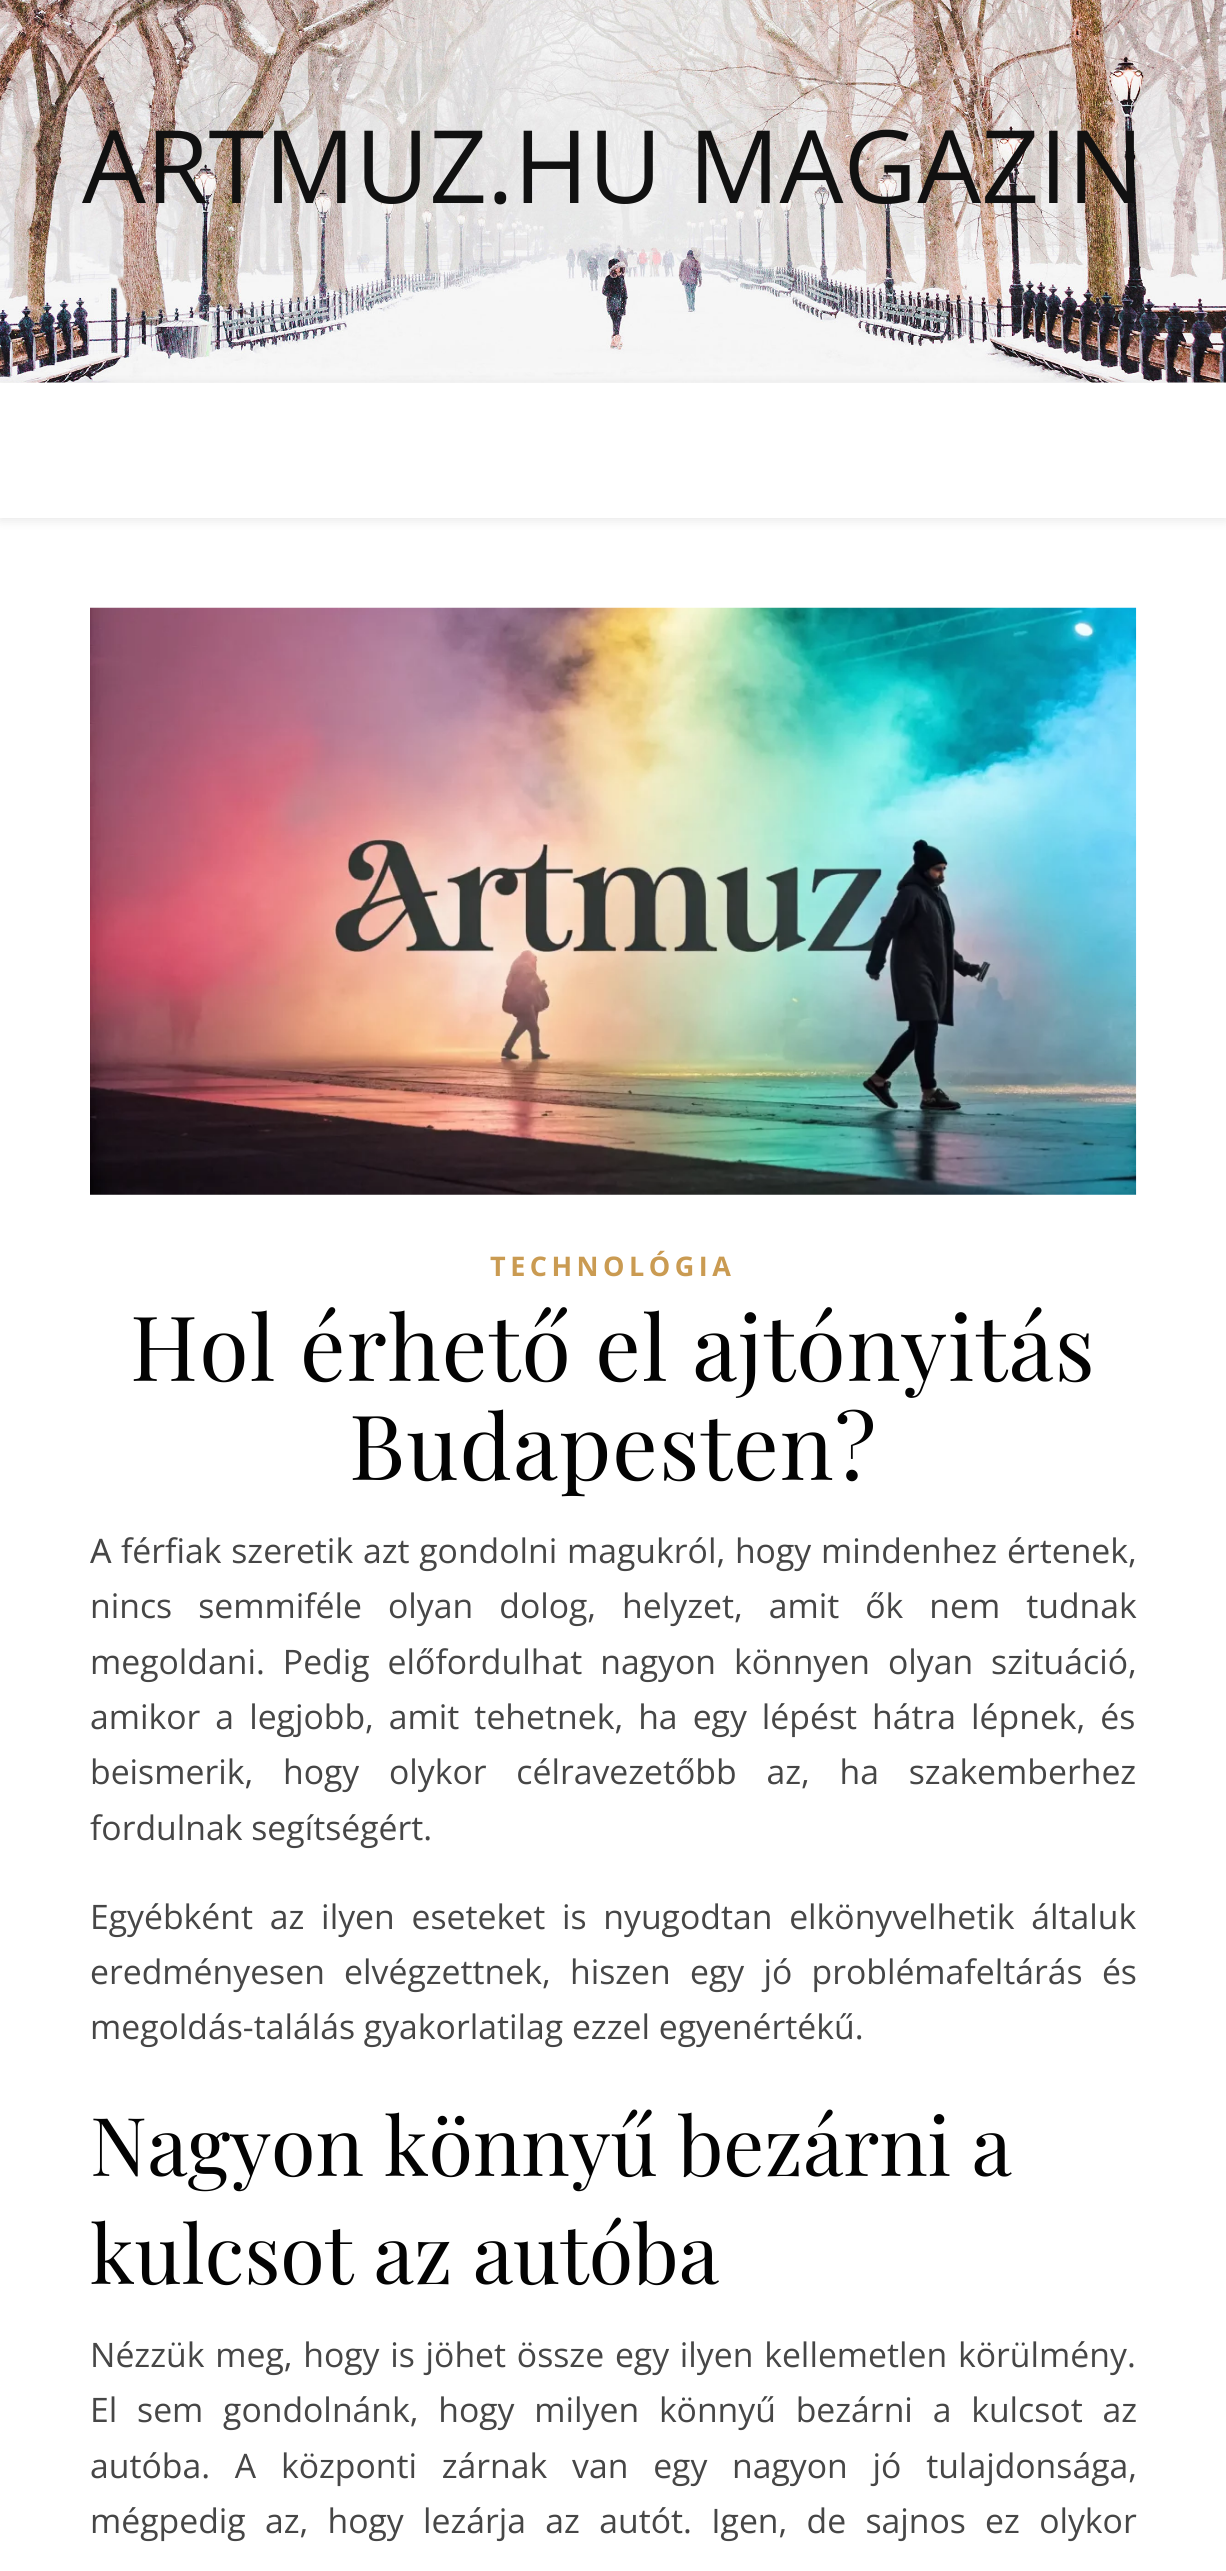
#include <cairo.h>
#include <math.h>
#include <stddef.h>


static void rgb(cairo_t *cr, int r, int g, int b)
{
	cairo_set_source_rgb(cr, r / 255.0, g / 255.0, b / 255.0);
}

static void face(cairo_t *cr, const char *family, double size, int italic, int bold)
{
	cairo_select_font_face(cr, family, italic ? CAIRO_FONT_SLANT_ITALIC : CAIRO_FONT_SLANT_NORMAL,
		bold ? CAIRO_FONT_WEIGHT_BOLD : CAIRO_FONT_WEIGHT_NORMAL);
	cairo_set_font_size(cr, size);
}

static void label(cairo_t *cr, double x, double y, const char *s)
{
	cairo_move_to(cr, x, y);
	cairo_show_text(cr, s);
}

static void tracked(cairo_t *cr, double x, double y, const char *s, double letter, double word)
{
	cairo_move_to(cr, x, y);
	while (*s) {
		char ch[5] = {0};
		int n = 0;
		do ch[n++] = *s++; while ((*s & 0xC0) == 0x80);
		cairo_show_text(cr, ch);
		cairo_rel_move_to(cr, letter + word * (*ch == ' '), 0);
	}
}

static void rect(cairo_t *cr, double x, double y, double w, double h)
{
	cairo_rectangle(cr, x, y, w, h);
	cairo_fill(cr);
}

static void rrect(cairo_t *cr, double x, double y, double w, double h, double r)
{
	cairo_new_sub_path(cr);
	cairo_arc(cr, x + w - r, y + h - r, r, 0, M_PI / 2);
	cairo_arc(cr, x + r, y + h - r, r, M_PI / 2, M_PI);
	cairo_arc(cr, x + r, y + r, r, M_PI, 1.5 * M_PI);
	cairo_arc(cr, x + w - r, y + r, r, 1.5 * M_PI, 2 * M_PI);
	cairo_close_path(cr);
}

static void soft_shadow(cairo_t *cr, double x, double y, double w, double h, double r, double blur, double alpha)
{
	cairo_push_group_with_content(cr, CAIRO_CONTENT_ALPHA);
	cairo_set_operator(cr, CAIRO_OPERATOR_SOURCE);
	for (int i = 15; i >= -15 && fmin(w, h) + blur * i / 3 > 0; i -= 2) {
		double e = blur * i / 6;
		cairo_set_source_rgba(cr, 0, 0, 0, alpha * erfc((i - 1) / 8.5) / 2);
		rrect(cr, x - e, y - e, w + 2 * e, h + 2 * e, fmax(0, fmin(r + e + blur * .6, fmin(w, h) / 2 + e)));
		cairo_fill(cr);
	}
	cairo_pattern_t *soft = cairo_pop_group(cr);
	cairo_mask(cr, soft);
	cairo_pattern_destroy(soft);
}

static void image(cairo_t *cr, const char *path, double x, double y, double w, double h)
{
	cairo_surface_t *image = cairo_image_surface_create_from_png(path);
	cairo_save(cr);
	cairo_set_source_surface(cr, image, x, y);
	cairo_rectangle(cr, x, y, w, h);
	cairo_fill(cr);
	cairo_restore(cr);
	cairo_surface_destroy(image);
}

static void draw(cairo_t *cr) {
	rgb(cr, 255, 255, 255);
	cairo_paint(cr);
	image(cr, "image0.png", 0, 0, 1226, 383);
	face(cr, "Open Sans", 101.25, 0, 0);
	rgb(cr, 17, 17, 17);
	label(cr, 82, 203, "ARTMUZ.HU MAGAZIN");
	rgb(cr, 0, 0, 0);
	soft_shadow(cr, 0, 385, 1226, 135, 0, 5.5, 0.1);
	rgb(cr, 255, 255, 255);
	rect(cr, 0, 383, 1226, 135);
	image(cr, "image1.png", 90, 607, 1047, 588);
	face(cr, "Open Sans", 27, 0, 1);
	rgb(cr, 202, 155, 82);
	tracked(cr, 490, 1276, "TECHNOLÓGIA", 4.5, 0);
	face(cr, "Playfair Display", 90, 0, 0);
	rgb(cr, 3, 3, 3);
	tracked(cr, 130, 1381, "Hol érhető el ajtónyitás", 1.1, 0);
	tracked(cr, 349, 1480, "Budapesten?", 1.1, 0);
	face(cr, "Noto Sans", 33.75, 0, 0);
	rgb(cr, 70, 70, 70);
	label(cr, 90, 1563, "A");
	face(cr, "Open Sans", 33.75, 0, 0);
	tracked(cr, 121, 1563, "férfiak szeretik azt gondolni magukról, hogy mindenhez értenek,", 0, 1);
	tracked(cr, 90, 1618, "nincs semmiféle olyan dolog, helyzet, amit ők nem tudnak", 0, 17.25);
	tracked(cr, 90, 1674, "megoldani. Pedig előfordulhat nagyon könnyen olyan szituáció,", 0, 9.25);
	tracked(cr, 90, 1729, "amikor a legjobb, amit tehetnek, ha egy lépést hátra lépnek, és", 0, 6.25);
	tracked(cr, 90, 1784, "beismerik, hogy olykor célravezetőbb az, ha szakemberhez", 0, 21);
	label(cr, 90, 1840, "fordulnak segítségért.");
	tracked(cr, 90, 1929, "Egyébként az ilyen eseteket is nyugodtan elkönyvelhetik általuk", 0, 8);
	tracked(cr, 90, 1984, "eredményesen elvégzettnek, hiszen egy jó problémafeltárás és", 0, 10.5);
	label(cr, 90, 2039, "megoldás-találás gyakorlatilag ezzel egyenértékű.");
	face(cr, "Playfair Display", 81, 0, 0);
	rgb(cr, 3, 3, 3);
	label(cr, 90, 2176, "Nagyon könnyű bezárni a");
	label(cr, 90, 2284, "kulcsot az autóba");
	face(cr, "Open Sans", 33.75, 0, 0);
	rgb(cr, 70, 70, 70);
	tracked(cr, 90, 2367, "Nézzük meg, hogy is jöhet össze egy ilyen kellemetlen körülmény.", 0, 2);
	tracked(cr, 90, 2422, "El sem gondolnánk, hogy milyen könnyű bezárni a kulcsot az", 0, 11);
	tracked(cr, 90, 2478, "autóba. A központi zárnak van egy nagyon jó tulajdonsága,", 0, 16);
	tracked(cr, 90, 2533, "mégpedig az, hogy lezárja az autót. Igen, de sajnos ez olykor", 0, 10.5);
}

int main(void) {
	cairo_surface_t *surface = cairo_image_surface_create(CAIRO_FORMAT_RGB24, 1226, 2571);
	cairo_t *cr = cairo_create(surface);
	cairo_font_options_t *options = cairo_font_options_create();
	cairo_font_options_set_hint_metrics(options, CAIRO_HINT_METRICS_OFF);
	cairo_font_options_set_hint_style(options, CAIRO_HINT_STYLE_NONE);
	cairo_set_font_options(cr, options);
	cairo_set_miter_limit(cr, 4);
	draw(cr);
	cairo_surface_write_to_png(surface, "render.png");
	cairo_font_options_destroy(options);
	cairo_destroy(cr);
	cairo_surface_destroy(surface);
	return 0;
}
